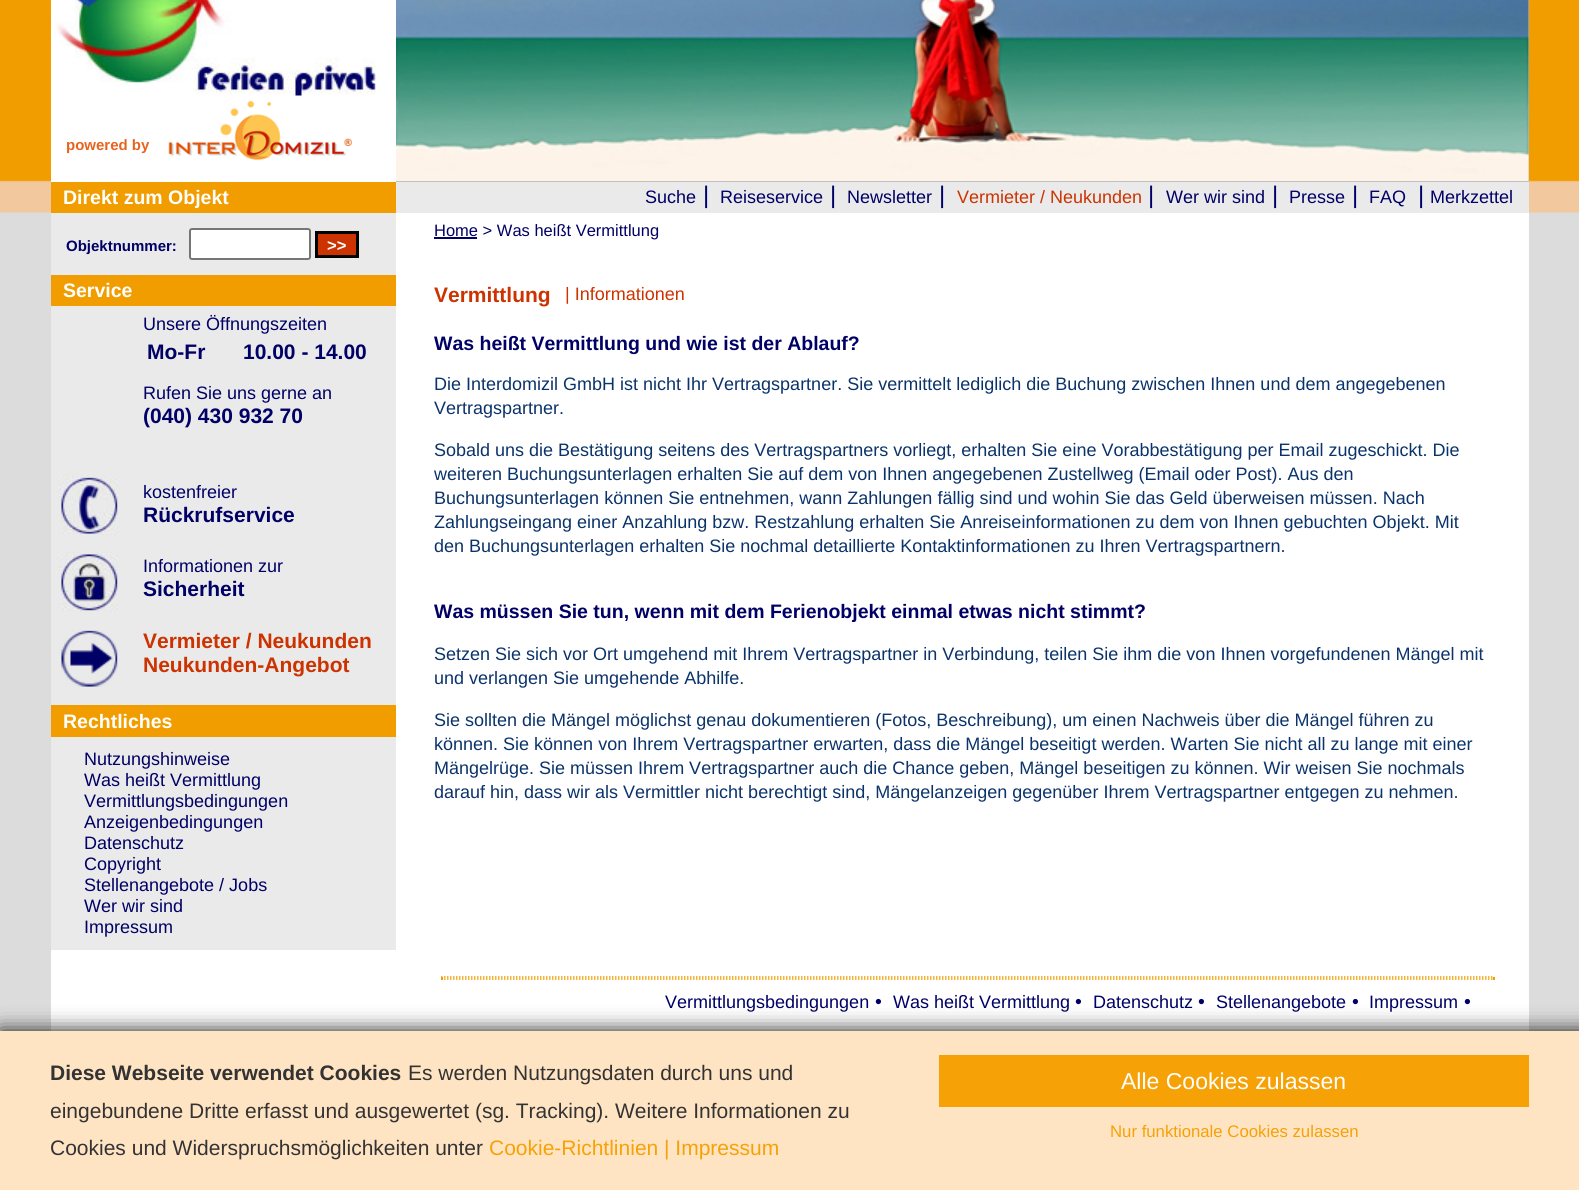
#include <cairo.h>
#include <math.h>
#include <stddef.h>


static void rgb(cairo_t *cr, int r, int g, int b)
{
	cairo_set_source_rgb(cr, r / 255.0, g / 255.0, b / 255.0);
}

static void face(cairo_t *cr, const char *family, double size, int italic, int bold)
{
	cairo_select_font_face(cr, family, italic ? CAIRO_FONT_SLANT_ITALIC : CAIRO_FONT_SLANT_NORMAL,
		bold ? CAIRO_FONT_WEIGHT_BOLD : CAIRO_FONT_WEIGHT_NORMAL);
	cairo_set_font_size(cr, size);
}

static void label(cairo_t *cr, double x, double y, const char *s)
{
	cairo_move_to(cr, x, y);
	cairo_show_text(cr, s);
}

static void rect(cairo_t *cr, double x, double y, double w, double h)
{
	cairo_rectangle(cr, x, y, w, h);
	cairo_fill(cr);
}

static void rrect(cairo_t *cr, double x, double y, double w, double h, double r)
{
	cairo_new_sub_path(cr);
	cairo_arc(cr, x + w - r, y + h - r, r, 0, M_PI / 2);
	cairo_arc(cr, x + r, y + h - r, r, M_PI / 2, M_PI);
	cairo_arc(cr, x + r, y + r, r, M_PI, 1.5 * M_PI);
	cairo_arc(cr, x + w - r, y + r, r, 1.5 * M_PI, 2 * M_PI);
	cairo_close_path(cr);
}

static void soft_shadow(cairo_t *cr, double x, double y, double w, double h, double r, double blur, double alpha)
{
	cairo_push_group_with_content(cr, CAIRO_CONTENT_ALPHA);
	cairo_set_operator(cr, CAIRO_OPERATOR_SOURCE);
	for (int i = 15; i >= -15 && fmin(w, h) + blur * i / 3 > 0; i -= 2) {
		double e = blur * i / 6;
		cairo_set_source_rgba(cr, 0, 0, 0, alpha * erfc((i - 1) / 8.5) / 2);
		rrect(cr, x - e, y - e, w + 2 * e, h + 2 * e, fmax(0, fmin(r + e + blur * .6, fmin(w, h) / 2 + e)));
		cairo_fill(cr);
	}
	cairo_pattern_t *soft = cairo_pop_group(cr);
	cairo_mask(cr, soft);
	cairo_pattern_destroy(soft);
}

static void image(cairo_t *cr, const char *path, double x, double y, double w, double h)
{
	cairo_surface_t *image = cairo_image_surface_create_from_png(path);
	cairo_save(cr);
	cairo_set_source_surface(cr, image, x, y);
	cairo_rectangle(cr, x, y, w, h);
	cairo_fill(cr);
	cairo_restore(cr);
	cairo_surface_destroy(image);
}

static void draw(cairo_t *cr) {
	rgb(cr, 220, 220, 220);
	cairo_paint(cr);
	image(cr, "image0.png", 0, 0, 1579, 213);
	rgb(cr, 255, 255, 255);
	rect(cr, 51, 0, 1478, 1031);
	image(cr, "image1.png", 54, 0, 322, 103);
	face(cr, "Liberation Sans", 15, 0, 1);
	rgb(cr, 231, 100, 32);
	label(cr, 66, 150, "powered by");
	image(cr, "image2.png", 168, 97, 184, 64);
	rgb(cr, 192, 192, 192);
	rect(cr, 396, 0, 1133, 182);
	image(cr, "image3.png", 396, 0, 1133, 181);
	rgb(cr, 234, 234, 234);
	rect(cr, 51, 213, 345, 737);
	rgb(cr, 241, 157, 0);
	rect(cr, 51, 182, 345, 31);
	face(cr, "Liberation Sans", 19.5, 0, 1);
	rgb(cr, 255, 255, 255);
	label(cr, 63, 204, "Direkt zum Objekt");
	face(cr, "Liberation Sans", 15, 0, 1);
	rgb(cr, 0, 0, 102);
	label(cr, 66, 251, "Objektnummer:");
	rgb(cr, 255, 255, 255);
	rrect(cr, 190, 229, 120, 30, 2);
	cairo_fill_preserve(cr);
	rgb(cr, 118, 118, 118);
	cairo_stroke(cr);
	rgb(cr, 204, 51, 0);
	cairo_rectangle(cr, 316.5, 232.5, 41, 24);
	cairo_fill_preserve(cr);
	rgb(cr, 0, 0, 0);
	cairo_set_line_width(cr, 3);
	cairo_stroke(cr);
	face(cr, "Liberation Sans", 16.5, 0, 1);
	rgb(cr, 255, 255, 255);
	label(cr, 327, 251, ">>");
	rgb(cr, 241, 157, 0);
	rect(cr, 51, 275, 345, 31);
	face(cr, "Liberation Sans", 19.5, 0, 1);
	rgb(cr, 255, 255, 255);
	label(cr, 63, 297, "Service");
	face(cr, "Liberation Sans", 18, 0, 0);
	rgb(cr, 0, 0, 102);
	label(cr, 143, 330, "Unsere Öffnungszeiten");
	face(cr, "Liberation Sans", 21, 0, 1);
	label(cr, 147, 359, "Mo-Fr");
	label(cr, 243, 359, "10.00 - 14.00");
	image(cr, "image4.png", 58, 475, 61, 60);
	face(cr, "Liberation Sans", 18, 0, 0);
	label(cr, 143, 399, "Rufen Sie uns gerne an");
	face(cr, "Liberation Sans", 21, 0, 1);
	label(cr, 143, 423, "(040) 430 932 70");
	face(cr, "Liberation Sans", 18, 0, 0);
	label(cr, 143, 498, "kostenfreier");
	face(cr, "Liberation Sans", 21, 0, 1);
	label(cr, 143, 522, "Rückrufservice");
	image(cr, "image5.png", 58, 551, 61, 61);
	face(cr, "Liberation Sans", 18, 0, 0);
	label(cr, 143, 572, "Informationen zur");
	face(cr, "Liberation Sans", 21, 0, 1);
	label(cr, 143, 596, "Sicherheit");
	image(cr, "image6.png", 61, 630, 57, 57);
	rgb(cr, 204, 51, 0);
	label(cr, 143, 648, "Vermieter / Neukunden");
	label(cr, 143, 672, "Neukunden-Angebot");
	rgb(cr, 241, 157, 0);
	rect(cr, 51, 705, 345, 32);
	face(cr, "Liberation Sans", 19.5, 0, 1);
	rgb(cr, 255, 255, 255);
	label(cr, 63, 728, "Rechtliches");
	face(cr, "Liberation Sans", 18, 0, 0);
	rgb(cr, 0, 0, 102);
	label(cr, 84, 765, "Nutzungshinweise");
	label(cr, 84, 786, "Was heißt Vermittlung");
	label(cr, 84, 807, "Vermittlungsbedingungen");
	label(cr, 84, 828, "Anzeigenbedingungen");
	label(cr, 84, 849, "Datenschutz");
	label(cr, 84, 870, "Copyright");
	label(cr, 84, 891, "Stellenangebote / Jobs");
	label(cr, 84, 912, "Wer wir sind");
	label(cr, 84, 933, "Impressum");
	rgb(cr, 234, 234, 234);
	rect(cr, 396, 182, 1133, 31);
	rgb(cr, 0, 0, 102);
	label(cr, 645, 203, "Suche");
	face(cr, "Liberation Sans", 24, 0, 0);
	label(cr, 703, 203, "|");
	face(cr, "Liberation Sans", 18, 0, 0);
	label(cr, 720, 203, "Reiseservice");
	face(cr, "Liberation Sans", 24, 0, 0);
	label(cr, 830, 203, "|");
	face(cr, "Liberation Sans", 18, 0, 0);
	label(cr, 847, 203, "Newsletter");
	face(cr, "Liberation Sans", 24, 0, 0);
	label(cr, 939, 203, "|");
	face(cr, "Liberation Sans", 18, 0, 0);
	rgb(cr, 204, 51, 0);
	label(cr, 957, 203, "Vermieter / Neukunden");
	face(cr, "Liberation Sans", 24, 0, 0);
	rgb(cr, 0, 0, 102);
	label(cr, 1148, 203, "|");
	face(cr, "Liberation Sans", 18, 0, 0);
	label(cr, 1166, 203, "Wer wir sind");
	face(cr, "Liberation Sans", 24, 0, 0);
	label(cr, 1272, 203, "|");
	face(cr, "Liberation Sans", 18, 0, 0);
	label(cr, 1289, 203, "Presse");
	face(cr, "Liberation Sans", 24, 0, 0);
	label(cr, 1352, 203, "|");
	face(cr, "Liberation Sans", 18, 0, 0);
	label(cr, 1369, 203, "FAQ");
	face(cr, "Liberation Sans", 24, 0, 0);
	label(cr, 1418, 203, "|");
	face(cr, "Liberation Sans", 18, 0, 0);
	label(cr, 1430, 203, "Merkzettel");
	rect(cr, 434, 237, 43, 2);
	face(cr, "Liberation Sans", 16.5, 0, 0);
	label(cr, 434, 236, "Home > Was heißt Vermittlung");
	face(cr, "Liberation Sans", 21, 0, 1);
	rgb(cr, 204, 51, 0);
	label(cr, 434, 302, "Vermittlung");
	face(cr, "Liberation Sans", 18, 0, 0);
	label(cr, 565, 300, "| Informationen");
	face(cr, "Liberation Sans", 19.5, 0, 1);
	rgb(cr, 0, 0, 102);
	label(cr, 434, 350, "Was heißt Vermittlung und wie ist der Ablauf?");
	face(cr, "Liberation Sans", 18, 0, 0);
	rgb(cr, 11, 51, 107);
	label(cr, 434, 390, "Die Interdomizil GmbH ist nicht Ihr Vertragspartner. Sie vermittelt lediglich die Buchung zwischen Ihnen und dem angegebenen");
	label(cr, 434, 414, "Vertragspartner.");
	label(cr, 434, 456, "Sobald uns die Bestätigung seitens des Vertragspartners vorliegt, erhalten Sie eine Vorabbestätigung per Email zugeschickt. Die");
	label(cr, 434, 480, "weiteren Buchungsunterlagen erhalten Sie auf dem von Ihnen angegebenen Zustellweg (Email oder Post). Aus den");
	label(cr, 434, 504, "Buchungsunterlagen können Sie entnehmen, wann Zahlungen fällig sind und wohin Sie das Geld überweisen müssen. Nach");
	label(cr, 434, 528, "Zahlungseingang einer Anzahlung bzw. Restzahlung erhalten Sie Anreiseinformationen zu dem von Ihnen gebuchten Objekt. Mit");
	label(cr, 434, 552, "den Buchungsunterlagen erhalten Sie nochmal detaillierte Kontaktinformationen zu Ihren Vertragspartnern.");
	face(cr, "Liberation Sans", 19.5, 0, 1);
	rgb(cr, 0, 0, 102);
	label(cr, 434, 618, "Was müssen Sie tun, wenn mit dem Ferienobjekt einmal etwas nicht stimmt?");
	face(cr, "Liberation Sans", 18, 0, 0);
	rgb(cr, 11, 51, 107);
	label(cr, 434, 660, "Setzen Sie sich vor Ort umgehend mit Ihrem Vertragspartner in Verbindung, teilen Sie ihm die von Ihnen vorgefundenen Mängel mit");
	label(cr, 434, 684, "und verlangen Sie umgehende Abhilfe.");
	label(cr, 434, 726, "Sie sollten die Mängel möglichst genau dokumentieren (Fotos, Beschreibung), um einen Nachweis über die Mängel führen zu");
	label(cr, 434, 750, "können. Sie können von Ihrem Vertragspartner erwarten, dass die Mängel beseitigt werden. Warten Sie nicht all zu lange mit einer");
	label(cr, 434, 774, "Mängelrüge. Sie müssen Ihrem Vertragspartner auch die Chance geben, Mängel beseitigen zu können. Wir weisen Sie nochmals");
	label(cr, 434, 798, "darauf hin, dass wir als Vermittler nicht berechtigt sind, Mängelanzeigen gegenüber Ihrem Vertragspartner entgegen zu nehmen.");
	cairo_new_path(cr);
	cairo_move_to(cr, 441, 977);
	cairo_line_to(cr, 1494, 977);
	rgb(cr, 241, 157, 0);
	cairo_set_line_width(cr, 1.5);
	cairo_set_dash(cr, (double[]){1.5, 1.5}, 2, 0);
	cairo_stroke(cr);
	rect(cr, 1493, 977, 2, 3);
	cairo_new_path(cr);
	cairo_move_to(cr, 441, 979);
	cairo_line_to(cr, 1494, 979);
	cairo_stroke(cr);
	rect(cr, 441, 977, 2, 3);
	rgb(cr, 0, 0, 102);
	label(cr, 665, 1008, "Vermittlungsbedingungen");
	face(cr, "Liberation Sans", 19.5, 0, 0);
	label(cr, 875, 1008, "•");
	face(cr, "Liberation Sans", 18, 0, 0);
	label(cr, 893, 1008, "Was heißt Vermittlung");
	face(cr, "Liberation Sans", 19.5, 0, 0);
	label(cr, 1075, 1008, "•");
	face(cr, "Liberation Sans", 18, 0, 0);
	label(cr, 1093, 1008, "Datenschutz");
	face(cr, "Liberation Sans", 19.5, 0, 0);
	label(cr, 1198, 1008, "•");
	face(cr, "Liberation Sans", 18, 0, 0);
	label(cr, 1216, 1008, "Stellenangebote");
	face(cr, "Liberation Sans", 19.5, 0, 0);
	label(cr, 1352, 1008, "•");
	face(cr, "Liberation Sans", 18, 0, 0);
	label(cr, 1369, 1008, "Impressum");
	face(cr, "Liberation Sans", 19.5, 0, 0);
	label(cr, 1464, 1008, "•");
	rgb(cr, 18, 18, 18);
	soft_shadow(cr, 0, 1031, 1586, 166, 0, 10.5, 1);
	rgb(cr, 255, 228, 196);
	rect(cr, 0, 1031, 1579, 159);
	face(cr, "Liberation Sans", 21, 0, 1);
	rgb(cr, 51, 51, 51);
	label(cr, 50, 1080, "Diese Webseite verwendet Cookies");
	face(cr, "Liberation Sans", 21, 0, 0);
	label(cr, 408, 1080, "Es werden Nutzungsdaten durch uns und");
	label(cr, 50, 1118, "eingebundene Dritte erfasst und ausgewertet (sg. Tracking). Weitere Informationen zu");
	label(cr, 50, 1155, "Cookies und Widerspruchsmöglichkeiten unter");
	rgb(cr, 246, 161, 5);
	label(cr, 489, 1155, "Cookie-Richtlinien | Impressum");
	rect(cr, 939, 1055, 590, 52);
	face(cr, "Liberation Sans", 23, 0, 0);
	rgb(cr, 255, 255, 255);
	label(cr, 1121, 1089, "Alle Cookies zulassen");
	face(cr, "Liberation Sans", 16.75, 0, 0);
	rgb(cr, 246, 161, 5);
	label(cr, 1110, 1137, "Nur funktionale Cookies zulassen");
}

int main(void) {
	cairo_surface_t *surface = cairo_image_surface_create(CAIRO_FORMAT_RGB24, 1579, 1190);
	cairo_t *cr = cairo_create(surface);
	cairo_font_options_t *options = cairo_font_options_create();
	cairo_font_options_set_hint_metrics(options, CAIRO_HINT_METRICS_OFF);
	cairo_font_options_set_hint_style(options, CAIRO_HINT_STYLE_NONE);
	cairo_set_font_options(cr, options);
	cairo_set_miter_limit(cr, 4);
	draw(cr);
	cairo_surface_write_to_png(surface, "render.png");
	cairo_font_options_destroy(options);
	cairo_destroy(cr);
	cairo_surface_destroy(surface);
	return 0;
}
